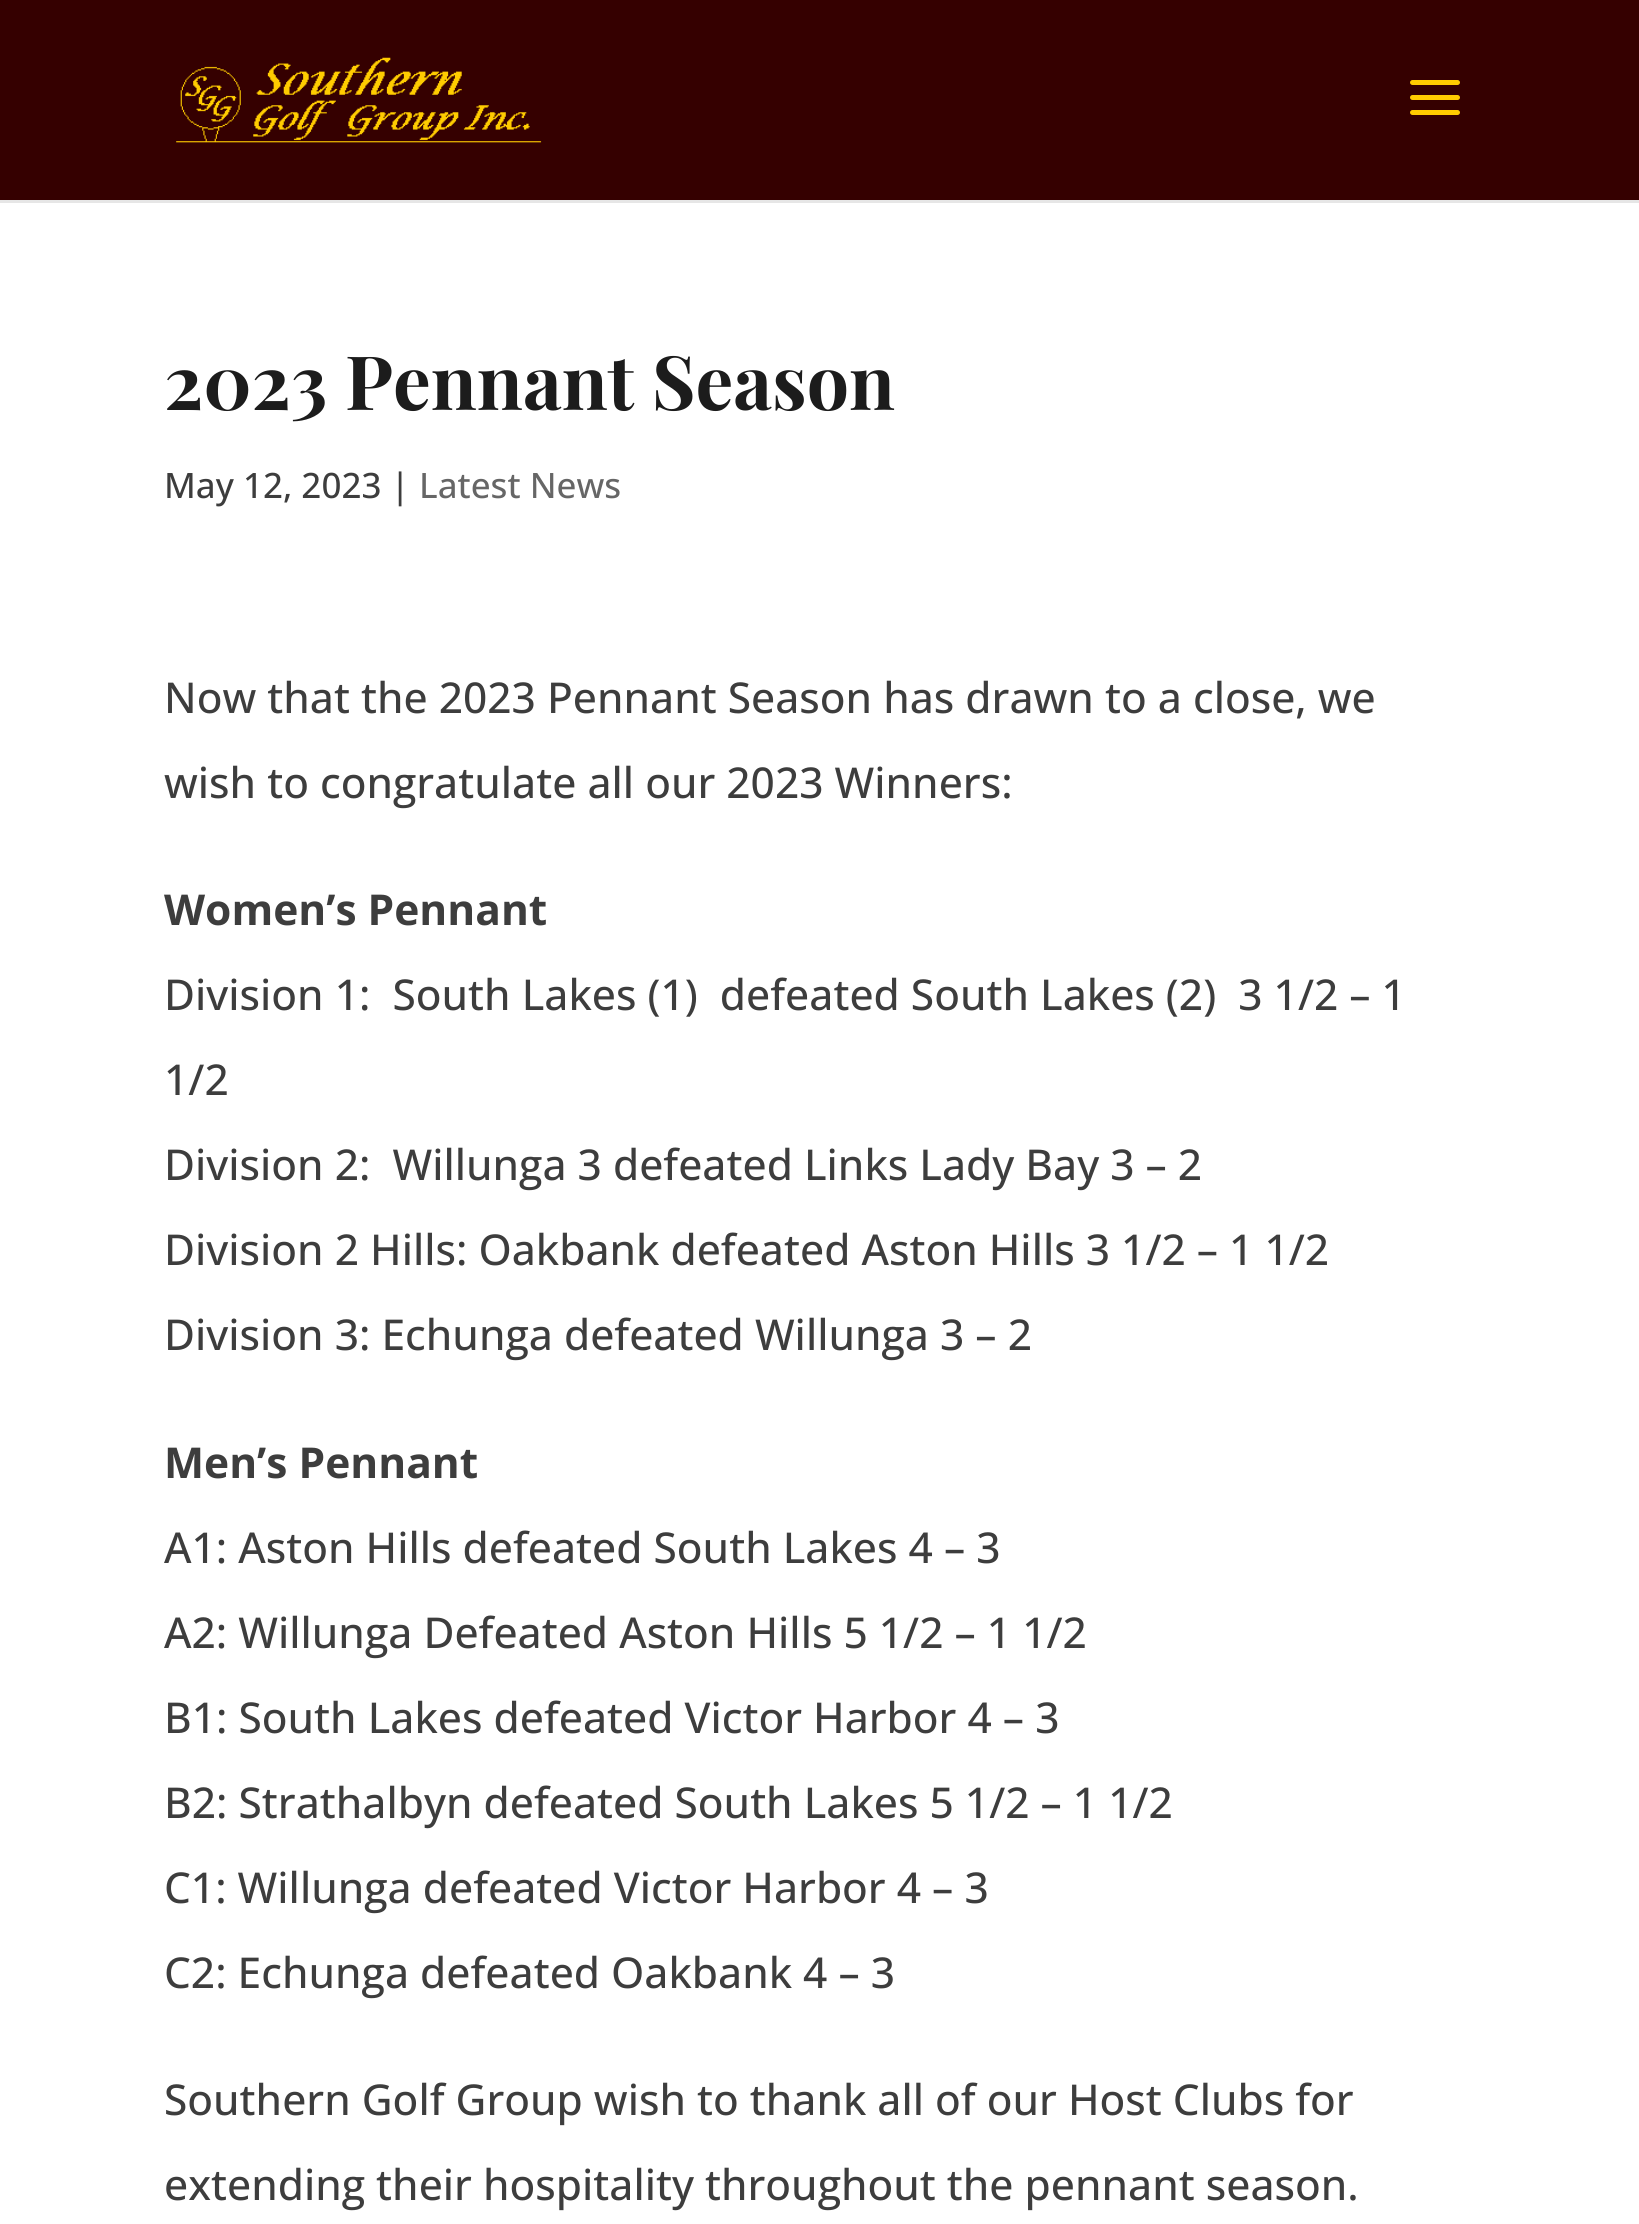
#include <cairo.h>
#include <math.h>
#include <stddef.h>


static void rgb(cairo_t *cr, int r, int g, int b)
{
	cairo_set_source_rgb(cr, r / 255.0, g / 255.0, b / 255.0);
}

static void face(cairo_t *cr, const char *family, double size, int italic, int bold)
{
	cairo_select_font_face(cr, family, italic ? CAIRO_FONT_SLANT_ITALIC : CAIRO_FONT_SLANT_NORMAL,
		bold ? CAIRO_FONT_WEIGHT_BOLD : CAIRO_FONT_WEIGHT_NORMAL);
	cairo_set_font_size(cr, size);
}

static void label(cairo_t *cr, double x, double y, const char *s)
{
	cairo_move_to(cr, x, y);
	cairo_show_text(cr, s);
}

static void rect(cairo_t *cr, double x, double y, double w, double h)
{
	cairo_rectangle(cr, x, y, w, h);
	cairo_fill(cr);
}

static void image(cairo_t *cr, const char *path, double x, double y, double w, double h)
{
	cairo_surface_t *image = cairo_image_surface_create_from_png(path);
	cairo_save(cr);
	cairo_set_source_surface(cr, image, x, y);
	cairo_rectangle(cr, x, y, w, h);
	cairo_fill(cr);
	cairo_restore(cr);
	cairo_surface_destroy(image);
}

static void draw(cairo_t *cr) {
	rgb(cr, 255, 255, 255);
	cairo_paint(cr);
	rgb(cr, 230, 230, 230);
	rect(cr, 0, 200, 1639, 3);
	rgb(cr, 53, 0, 0);
	rect(cr, 0, 0, 1639, 200);
	image(cr, "image0.png", 176, 57, 366, 86);
	image(cr, "image1.png", 1410, 80, 50, 35);
	face(cr, "Playfair Display", 75, 0, 1);
	rgb(cr, 28, 28, 28);
	label(cr, 164, 410, "2023 Pennant Season");
	face(cr, "Open Sans Medium", 35, 0, 0);
	rgb(cr, 61, 61, 61);
	label(cr, 164, 498, "May 12, 2023 |");
	rgb(cr, 102, 102, 102);
	label(cr, 419, 498, "Latest News");
	face(cr, "Open Sans Medium", 42.5, 0, 0);
	rgb(cr, 61, 61, 61);
	label(cr, 164, 713, "Now that the 2023 Pennant Season has drawn to a close, we");
	label(cr, 164, 798, "wish to congratulate all our 2023 Winners:");
	face(cr, "Open Sans", 42.5, 0, 1);
	label(cr, 164, 925, "Women’s Pennant");
	face(cr, "Open Sans Medium", 42.5, 0, 0);
	label(cr, 164, 1010, "Division 1:  South Lakes (1)  defeated South Lakes (2)  3 1/2 – 1");
	label(cr, 164, 1095, "1/2");
	label(cr, 164, 1180, "Division 2:  Willunga 3 defeated Links Lady Bay 3 – 2");
	label(cr, 164, 1265, "Division 2 Hills: Oakbank defeated Aston Hills 3 1/2 – 1 1/2");
	label(cr, 164, 1350, "Division 3: Echunga defeated Willunga 3 – 2");
	face(cr, "Open Sans", 42.5, 0, 1);
	label(cr, 164, 1478, "Men’s Pennant");
	face(cr, "Open Sans Medium", 42.5, 0, 0);
	label(cr, 164, 1563, "A1: Aston Hills defeated South Lakes 4 – 3");
	label(cr, 164, 1648, "A2: Willunga Defeated Aston Hills 5 1/2 – 1 1/2");
	label(cr, 164, 1733, "B1: South Lakes defeated Victor Harbor 4 – 3");
	label(cr, 164, 1818, "B2: Strathalbyn defeated South Lakes 5 1/2 – 1 1/2");
	label(cr, 164, 1903, "C1: Willunga defeated Victor Harbor 4 – 3");
	label(cr, 164, 1988, "C2: Echunga defeated Oakbank 4 – 3");
	label(cr, 164, 2115, "Southern Golf Group wish to thank all of our Host Clubs for");
	label(cr, 164, 2200, "extending their hospitality throughout the pennant season.");
}

int main(void) {
	cairo_surface_t *surface = cairo_image_surface_create(CAIRO_FORMAT_RGB24, 1639, 2224);
	cairo_t *cr = cairo_create(surface);
	cairo_font_options_t *options = cairo_font_options_create();
	cairo_font_options_set_hint_metrics(options, CAIRO_HINT_METRICS_OFF);
	cairo_font_options_set_hint_style(options, CAIRO_HINT_STYLE_NONE);
	cairo_set_font_options(cr, options);
	cairo_set_miter_limit(cr, 4);
	draw(cr);
	cairo_surface_write_to_png(surface, "render.png");
	cairo_font_options_destroy(options);
	cairo_destroy(cr);
	cairo_surface_destroy(surface);
	return 0;
}
